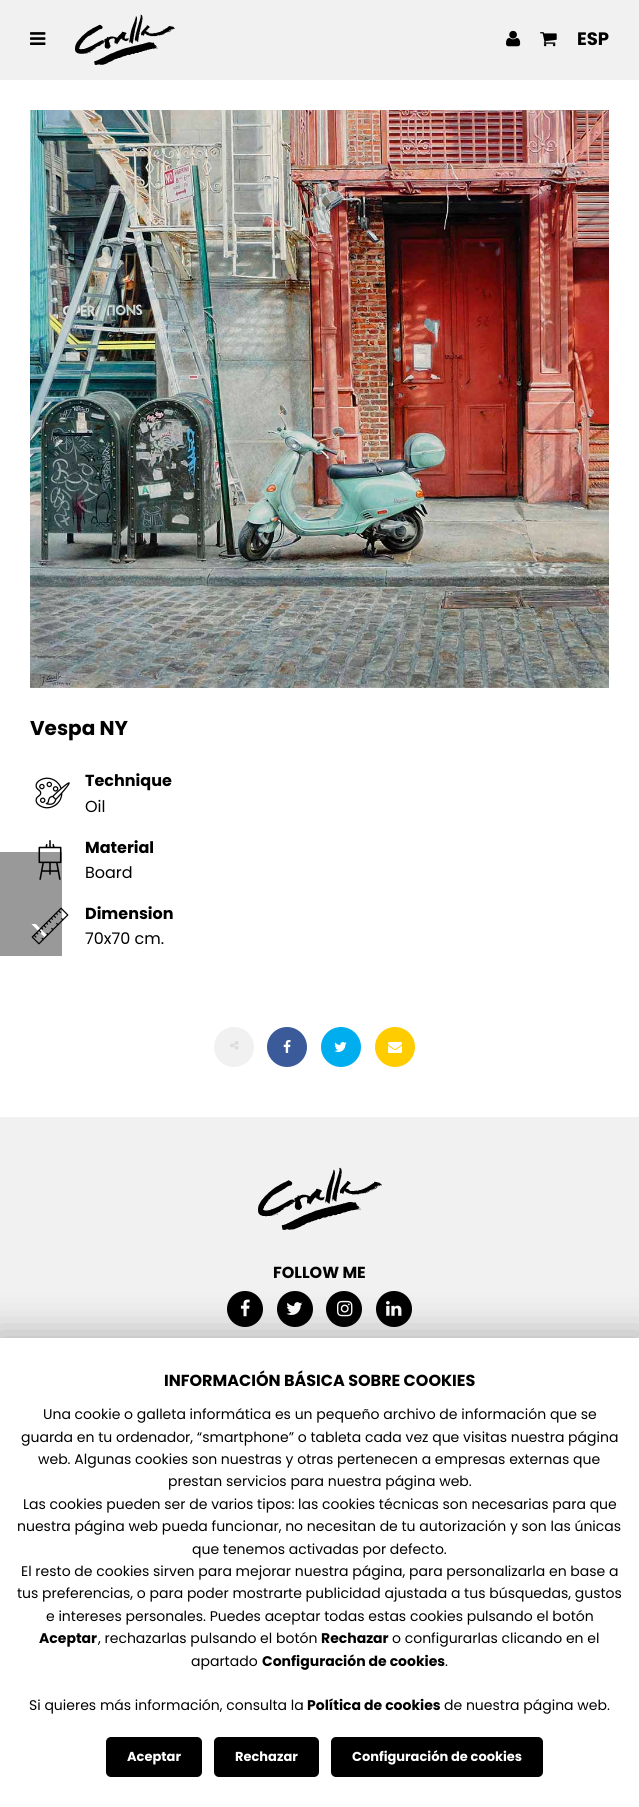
#include <cairo.h>
#include <math.h>
#include <stddef.h>


static void rgb(cairo_t *cr, int r, int g, int b)
{
	cairo_set_source_rgb(cr, r / 255.0, g / 255.0, b / 255.0);
}

static void face(cairo_t *cr, const char *family, double size, int italic, int bold)
{
	cairo_select_font_face(cr, family, italic ? CAIRO_FONT_SLANT_ITALIC : CAIRO_FONT_SLANT_NORMAL,
		bold ? CAIRO_FONT_WEIGHT_BOLD : CAIRO_FONT_WEIGHT_NORMAL);
	cairo_set_font_size(cr, size);
}

static void label(cairo_t *cr, double x, double y, const char *s)
{
	cairo_move_to(cr, x, y);
	cairo_show_text(cr, s);
}

static void rect(cairo_t *cr, double x, double y, double w, double h)
{
	cairo_rectangle(cr, x, y, w, h);
	cairo_fill(cr);
}

static void rrect(cairo_t *cr, double x, double y, double w, double h, double r)
{
	cairo_new_sub_path(cr);
	cairo_arc(cr, x + w - r, y + h - r, r, 0, M_PI / 2);
	cairo_arc(cr, x + r, y + h - r, r, M_PI / 2, M_PI);
	cairo_arc(cr, x + r, y + r, r, M_PI, 1.5 * M_PI);
	cairo_arc(cr, x + w - r, y + r, r, 1.5 * M_PI, 2 * M_PI);
	cairo_close_path(cr);
}

static void soft_shadow(cairo_t *cr, double x, double y, double w, double h, double r, double blur, double alpha)
{
	cairo_push_group_with_content(cr, CAIRO_CONTENT_ALPHA);
	cairo_set_operator(cr, CAIRO_OPERATOR_SOURCE);
	for (int i = 15; i >= -15 && fmin(w, h) + blur * i / 3 > 0; i -= 2) {
		double e = blur * i / 6;
		cairo_set_source_rgba(cr, 0, 0, 0, alpha * erfc((i - 1) / 8.5) / 2);
		rrect(cr, x - e, y - e, w + 2 * e, h + 2 * e, fmax(0, fmin(r + e + blur * .6, fmin(w, h) / 2 + e)));
		cairo_fill(cr);
	}
	cairo_pattern_t *soft = cairo_pop_group(cr);
	cairo_mask(cr, soft);
	cairo_pattern_destroy(soft);
}

static void image(cairo_t *cr, const char *path, double x, double y, double w, double h)
{
	cairo_surface_t *image = cairo_image_surface_create_from_png(path);
	cairo_save(cr);
	cairo_set_source_surface(cr, image, x, y);
	cairo_rectangle(cr, x, y, w, h);
	cairo_fill(cr);
	cairo_restore(cr);
	cairo_surface_destroy(image);
}

static void draw(cairo_t *cr) {
	rgb(cr, 255, 255, 255);
	cairo_paint(cr);
	rgb(cr, 241, 241, 241);
	rect(cr, 0, 0, 639, 80);
	image(cr, "image0.png", 30, 32, 16, 13);
	image(cr, "image1.png", 75, 14, 100, 51);
	image(cr, "image2.png", 506, 30, 15, 17);
	image(cr, "image3.png", 540, 32, 17, 15);
	face(cr, "Poppins", 18, 0, 1);
	rgb(cr, 0, 0, 0);
	label(cr, 577, 45, "ESP");
	image(cr, "image4.png", 30, 110, 579, 578);
	face(cr, "Poppins", 20, 0, 1);
	label(cr, 30, 735, "Vespa NY");
	image(cr, "image5.png", 35, 777, 35, 32);
	face(cr, "Poppins", 16, 0, 1);
	label(cr, 85, 786, "Technique");
	face(cr, "Poppins", 16, 0, 0);
	label(cr, 85, 812, "Oil");
	rgb(cr, 153, 153, 153);
	rect(cr, 0, 852, 62, 104);
	image(cr, "image6.png", 38, 840, 24, 40);
	face(cr, "Poppins", 16, 0, 1);
	rgb(cr, 0, 0, 0);
	label(cr, 85, 853, "Material");
	face(cr, "Poppins", 16, 0, 0);
	label(cr, 85, 878, "Board");
	image(cr, "image8.png", 31, 924, 16, 13);
	image(cr, "image7.png", 31, 907, 38, 38);
	face(cr, "Poppins", 16, 0, 1);
	label(cr, 85, 919, "Dimension");
	face(cr, "Poppins", 16, 0, 0);
	label(cr, 85, 944, "70x70 cm.");
	rgb(cr, 241, 241, 241);
	cairo_new_path(cr);
	cairo_arc(cr, 234, 1047, 20, 0, 2 * M_PI);
	cairo_fill(cr);
	image(cr, "image9.png", 230, 1041, 9, 9);
	rgb(cr, 59, 90, 154);
	cairo_arc(cr, 287, 1047, 20, 0, 2 * M_PI);
	cairo_fill(cr);
	image(cr, "image10.png", 283, 1040, 8, 13);
	rgb(cr, 0, 174, 240);
	cairo_arc(cr, 341, 1047, 20, 0, 2 * M_PI);
	cairo_fill(cr);
	image(cr, "image11.png", 334, 1042, 13, 10);
	rgb(cr, 255, 204, 0);
	cairo_arc(cr, 395, 1047, 20, 0, 2 * M_PI);
	cairo_fill(cr);
	image(cr, "image12.png", 388, 1042, 14, 11);
	rgb(cr, 241, 241, 241);
	rect(cr, 0, 1117, 639, 221);
	image(cr, "image13.png", 258, 1167, 124, 63);
	face(cr, "Poppins", 16, 0, 1);
	rgb(cr, 0, 0, 0);
	label(cr, 273, 1278, "FOLLOW ME");
	cairo_new_path(cr);
	cairo_arc(cr, 245, 1309, 18, 0, 2 * M_PI);
	cairo_fill(cr);
	image(cr, "image14.png", 240, 1299, 10, 18);
	cairo_arc(cr, 295, 1309, 18, 0, 2 * M_PI);
	cairo_fill(cr);
	image(cr, "image15.png", 286, 1302, 17, 13);
	cairo_arc(cr, 344, 1309, 18, 0, 2 * M_PI);
	cairo_fill(cr);
	image(cr, "image16.png", 337, 1300, 16, 17);
	cairo_arc(cr, 394, 1309, 18, 0, 2 * M_PI);
	cairo_fill(cr);
	image(cr, "image17.png", 386, 1301, 16, 15);
	rgb(cr, 0, 0, 0);
	soft_shadow(cr, -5, 1333, 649, 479, 0, 20, 0.25);
	rgb(cr, 255, 255, 255);
	rect(cr, 0, 1338, 639, 469);
	rgb(cr, 0, 0, 0);
	label(cr, 164, 1386, "INFORMACIÓN BÁSICA SOBRE COOKIES");
	face(cr, "Poppins", 14, 0, 0);
	label(cr, 43, 1419, "Una cookie o galleta informática es un pequeño archivo de información que se");
	label(cr, 21, 1442, "guarda en tu ordenador, “smartphone” o tableta cada vez que visitas nuestra página");
	label(cr, 38, 1464, "web. Algunas cookies son nuestras y otras pertenecen a empresas externas que");
	label(cr, 168, 1486, "prestan servicios para nuestra página web.");
	label(cr, 23, 1509, "Las cookies pueden ser de varios tipos: las cookies técnicas son necesarias para que");
	label(cr, 17, 1531, "nuestra página web pueda funcionar, no necesitan de tu autorización y son las únicas");
	label(cr, 192, 1554, "que tenemos activadas por defecto.");
	label(cr, 21, 1576, "El resto de cookies sirven para mejorar nuestra página, para personalizarla en base a");
	label(cr, 17, 1598, "tus preferencias, o para poder mostrarte publicidad ajustada a tus búsquedas, gustos");
	label(cr, 46, 1621, "e intereses personales. Puedes aceptar todas estas cookies pulsando el botón");
	face(cr, "Poppins", 14, 0, 1);
	label(cr, 39, 1643, "Aceptar");
	face(cr, "Poppins", 14, 0, 0);
	label(cr, 98, 1643, ", rechazarlas pulsando el botón");
	face(cr, "Poppins", 14, 0, 1);
	label(cr, 321, 1643, "Rechazar");
	face(cr, "Poppins", 14, 0, 0);
	label(cr, 392, 1643, "o configurarlas clicando en el");
	label(cr, 191, 1666, "apartado");
	face(cr, "Poppins", 14, 0, 1);
	label(cr, 262, 1666, "Configuración de cookies");
	face(cr, "Poppins", 14, 0, 0);
	label(cr, 445, 1666, ".");
	label(cr, 29, 1710, "Si quieres más información, consulta la");
	face(cr, "Poppins", 14, 0, 1);
	label(cr, 307, 1710, "Política de cookies");
	face(cr, "Poppins", 14, 0, 0);
	label(cr, 444, 1710, "de nuestra página web.");
	rrect(cr, 106, 1737, 96, 40, 5);
	cairo_fill(cr);
	face(cr, "Poppins", 13, 0, 1);
	rgb(cr, 255, 255, 255);
	label(cr, 127, 1761, "Aceptar");
	rgb(cr, 0, 0, 0);
	rrect(cr, 214, 1737, 105, 40, 5);
	cairo_fill(cr);
	rgb(cr, 255, 255, 255);
	label(cr, 235, 1761, "Rechazar");
	rgb(cr, 0, 0, 0);
	rrect(cr, 331, 1737, 212, 40, 5);
	cairo_fill(cr);
	rgb(cr, 255, 255, 255);
	label(cr, 352, 1761, "Configuración de cookies");
}

int main(void) {
	cairo_surface_t *surface = cairo_image_surface_create(CAIRO_FORMAT_RGB24, 639, 1807);
	cairo_t *cr = cairo_create(surface);
	cairo_font_options_t *options = cairo_font_options_create();
	cairo_font_options_set_hint_metrics(options, CAIRO_HINT_METRICS_OFF);
	cairo_font_options_set_hint_style(options, CAIRO_HINT_STYLE_NONE);
	cairo_set_font_options(cr, options);
	cairo_set_miter_limit(cr, 4);
	draw(cr);
	cairo_surface_write_to_png(surface, "render.png");
	cairo_font_options_destroy(options);
	cairo_destroy(cr);
	cairo_surface_destroy(surface);
	return 0;
}
